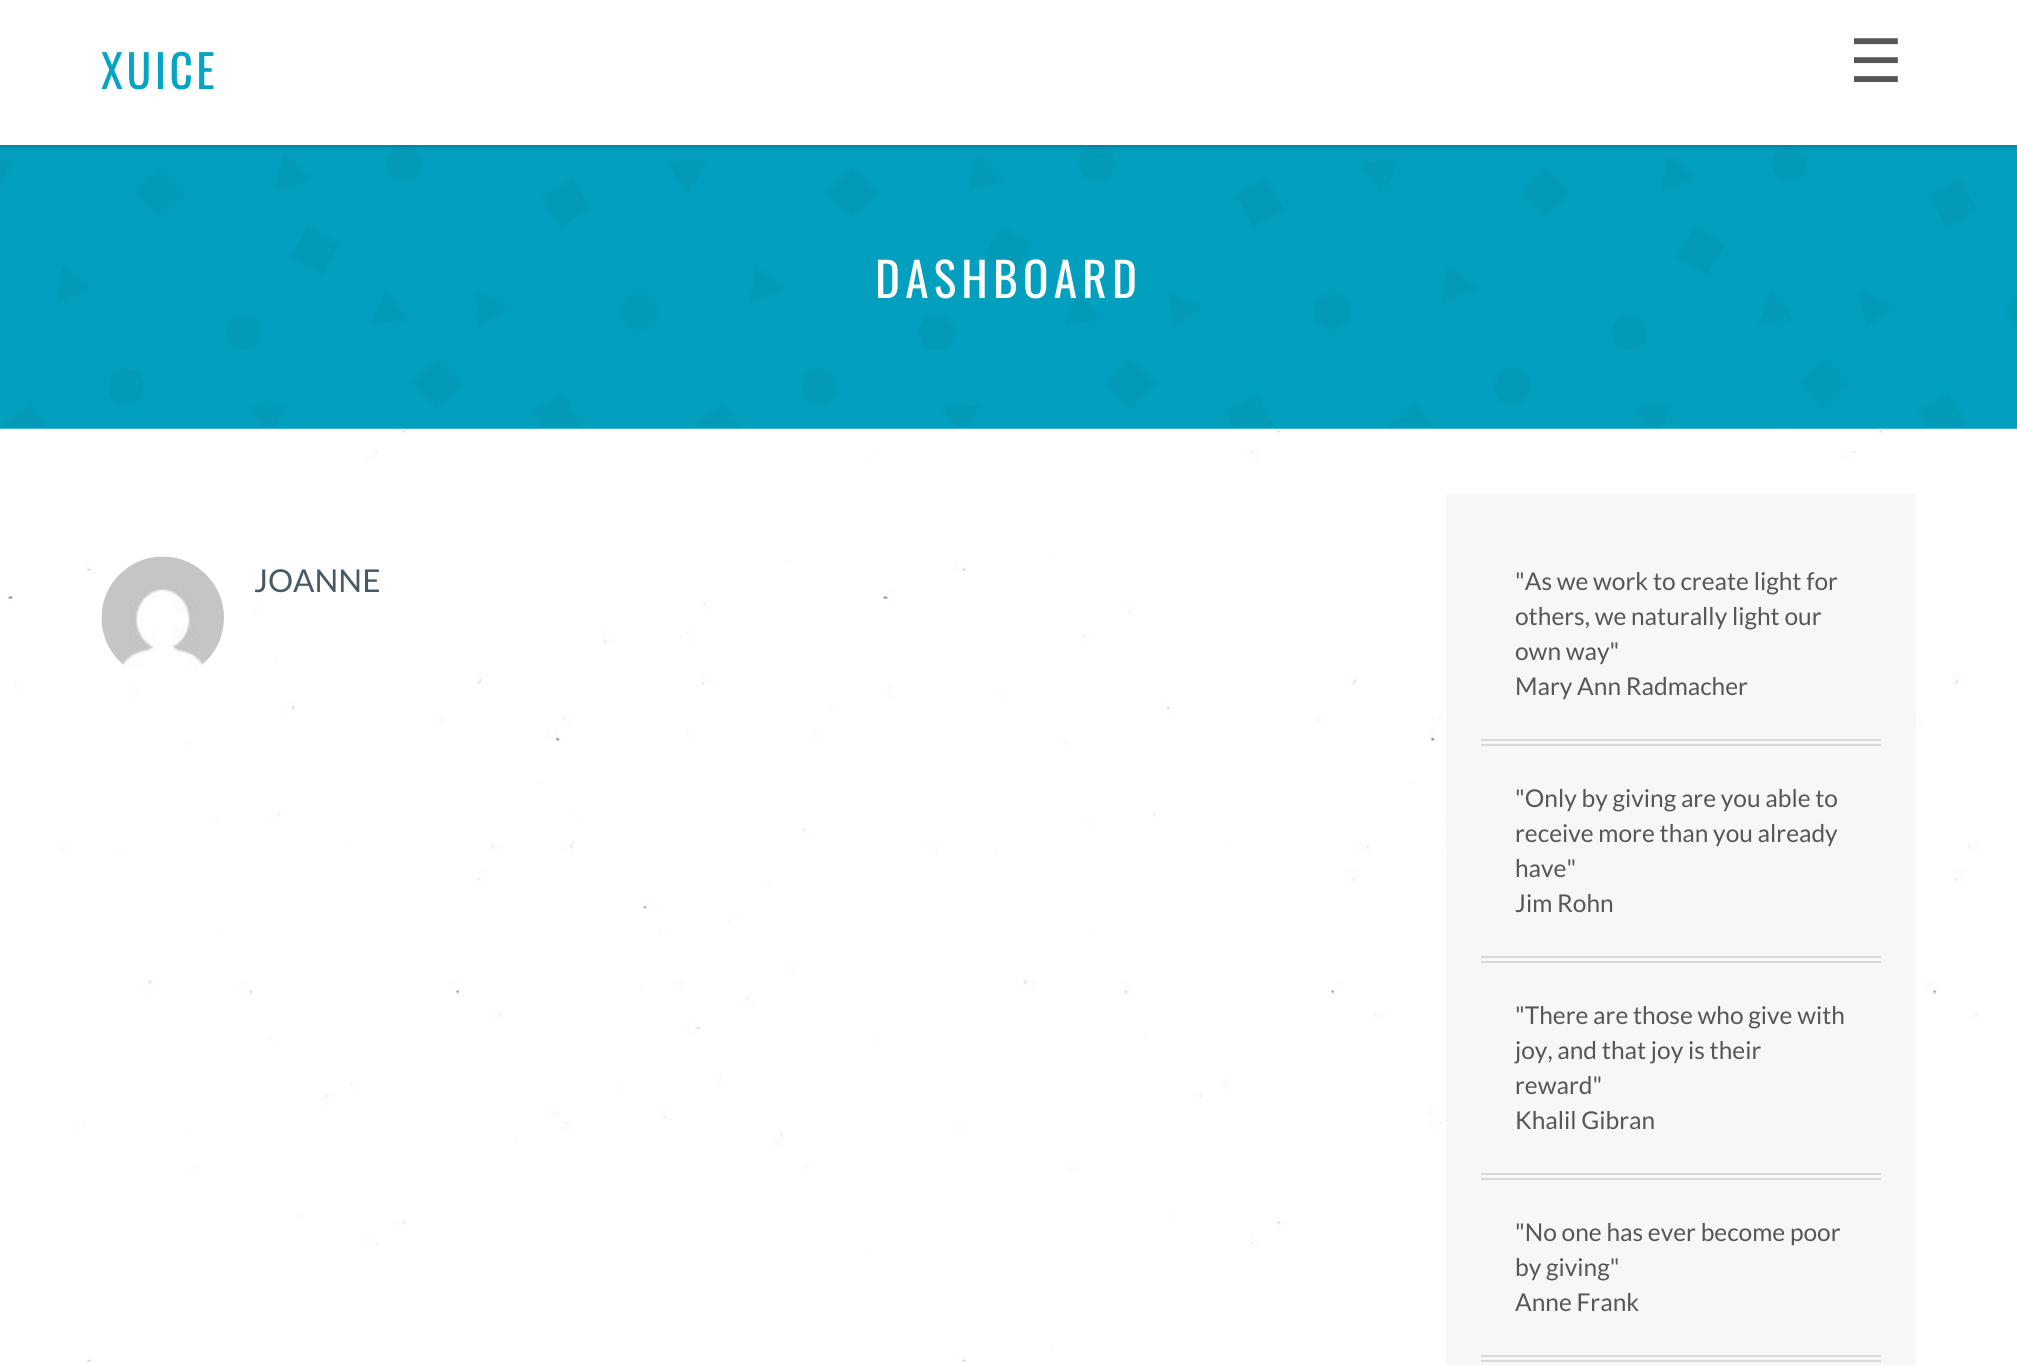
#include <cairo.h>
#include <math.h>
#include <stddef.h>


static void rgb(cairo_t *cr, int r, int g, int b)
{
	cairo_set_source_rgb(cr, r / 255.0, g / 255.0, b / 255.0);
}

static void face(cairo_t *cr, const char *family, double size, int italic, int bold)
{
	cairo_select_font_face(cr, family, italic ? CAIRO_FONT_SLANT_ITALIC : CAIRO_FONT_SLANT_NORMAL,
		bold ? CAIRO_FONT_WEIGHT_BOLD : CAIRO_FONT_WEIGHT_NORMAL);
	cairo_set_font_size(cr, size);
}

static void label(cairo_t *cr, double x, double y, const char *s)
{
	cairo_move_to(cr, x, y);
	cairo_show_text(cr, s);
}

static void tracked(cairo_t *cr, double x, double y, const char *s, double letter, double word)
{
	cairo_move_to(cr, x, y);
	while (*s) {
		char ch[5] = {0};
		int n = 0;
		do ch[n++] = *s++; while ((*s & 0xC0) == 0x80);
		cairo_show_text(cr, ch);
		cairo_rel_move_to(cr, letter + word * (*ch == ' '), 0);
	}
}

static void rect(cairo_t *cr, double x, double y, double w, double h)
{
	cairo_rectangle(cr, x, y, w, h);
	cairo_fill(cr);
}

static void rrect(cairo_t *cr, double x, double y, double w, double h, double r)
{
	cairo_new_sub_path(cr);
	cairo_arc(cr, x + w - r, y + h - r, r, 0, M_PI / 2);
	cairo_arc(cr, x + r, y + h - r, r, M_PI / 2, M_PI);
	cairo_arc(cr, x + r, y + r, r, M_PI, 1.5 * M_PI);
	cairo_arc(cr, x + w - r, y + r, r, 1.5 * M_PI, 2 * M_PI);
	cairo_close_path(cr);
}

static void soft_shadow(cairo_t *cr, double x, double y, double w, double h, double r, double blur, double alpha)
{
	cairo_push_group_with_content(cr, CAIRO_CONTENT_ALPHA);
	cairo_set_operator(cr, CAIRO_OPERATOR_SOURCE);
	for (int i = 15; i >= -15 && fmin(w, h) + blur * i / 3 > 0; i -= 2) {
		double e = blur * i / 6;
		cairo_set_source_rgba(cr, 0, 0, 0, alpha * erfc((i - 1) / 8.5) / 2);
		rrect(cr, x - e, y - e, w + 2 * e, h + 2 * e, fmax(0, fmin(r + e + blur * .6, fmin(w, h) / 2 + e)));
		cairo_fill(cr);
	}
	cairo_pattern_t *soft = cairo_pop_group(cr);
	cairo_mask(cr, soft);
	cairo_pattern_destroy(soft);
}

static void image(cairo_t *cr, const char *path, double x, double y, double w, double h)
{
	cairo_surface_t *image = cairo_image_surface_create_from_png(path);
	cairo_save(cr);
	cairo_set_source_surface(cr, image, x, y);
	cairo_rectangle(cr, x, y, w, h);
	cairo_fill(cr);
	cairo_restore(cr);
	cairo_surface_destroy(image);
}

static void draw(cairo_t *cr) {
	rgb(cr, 255, 255, 255);
	cairo_paint(cr);
	image(cr, "image0.png", 7, 428, 1972, 934);
	image(cr, "image1.png", 0, 145, 2017, 284);
	rgb(cr, 0, 0, 0);
	soft_shadow(cr, 0, 2, 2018, 145, 0, 2, 0.2);
	rgb(cr, 255, 255, 255);
	rect(cr, 0, 0, 2017, 145);
	face(cr, "Oswald", 45.5, 0, 0);
	rgb(cr, 3, 164, 196);
	tracked(cr, 101, 89, "XUICE", 3.5, 0);
	face(cr, "DejaVu Sans", 60, 0, 0);
	rgb(cr, 86, 86, 86);
	label(cr, 1849, 82, "☰");
	face(cr, "Oswald", 47.25, 0, 0);
	rgb(cr, 255, 255, 255);
	tracked(cr, 875, 298, "DASHBOARD", 5.25, 0);
	image(cr, "image2.png", 101, 556, 123, 112);
	face(cr, "Lato", 31.5, 0, 0);
	rgb(cr, 69, 90, 100);
	label(cr, 254, 592, "JOANNE");
	rgb(cr, 247, 247, 247);
	rect(cr, 1446, 494, 470, 871);
	rgb(cr, 219, 217, 212);
	rect(cr, 1481, 739, 400, 2);
	rect(cr, 1481, 744, 400, 2);
	face(cr, "Lato", 24.5, 0, 0);
	rgb(cr, 86, 86, 86);
	label(cr, 1515, 590, "\"As we work to create light for");
	label(cr, 1515, 625, "others, we naturally light our");
	label(cr, 1515, 660, "own way\"");
	label(cr, 1515, 695, "Mary Ann Radmacher");
	rgb(cr, 219, 217, 212);
	rect(cr, 1481, 956, 400, 2);
	rect(cr, 1481, 961, 400, 2);
	rgb(cr, 86, 86, 86);
	label(cr, 1515, 807, "\"Only by giving are you able to");
	label(cr, 1515, 842, "receive more than you already");
	label(cr, 1515, 877, "have\"");
	label(cr, 1515, 912, "Jim Rohn");
	rgb(cr, 219, 217, 212);
	rect(cr, 1481, 1173, 400, 2);
	rect(cr, 1481, 1178, 400, 2);
	rgb(cr, 86, 86, 86);
	label(cr, 1515, 1024, "\"There are those who give with");
	label(cr, 1515, 1059, "joy, and that joy is their");
	label(cr, 1515, 1094, "reward\"");
	label(cr, 1515, 1129, "Khalil Gibran");
	rgb(cr, 219, 217, 212);
	rect(cr, 1481, 1355, 400, 2);
	rect(cr, 1481, 1360, 400, 2);
	rgb(cr, 86, 86, 86);
	label(cr, 1515, 1241, "\"No one has ever become poor");
	label(cr, 1515, 1276, "by giving\"");
	label(cr, 1515, 1311, "Anne Frank");
}

int main(void) {
	cairo_surface_t *surface = cairo_image_surface_create(CAIRO_FORMAT_RGB24, 2017, 1365);
	cairo_t *cr = cairo_create(surface);
	cairo_font_options_t *options = cairo_font_options_create();
	cairo_font_options_set_hint_metrics(options, CAIRO_HINT_METRICS_OFF);
	cairo_font_options_set_hint_style(options, CAIRO_HINT_STYLE_NONE);
	cairo_set_font_options(cr, options);
	cairo_set_miter_limit(cr, 4);
	draw(cr);
	cairo_surface_write_to_png(surface, "render.png");
	cairo_font_options_destroy(options);
	cairo_destroy(cr);
	cairo_surface_destroy(surface);
	return 0;
}
